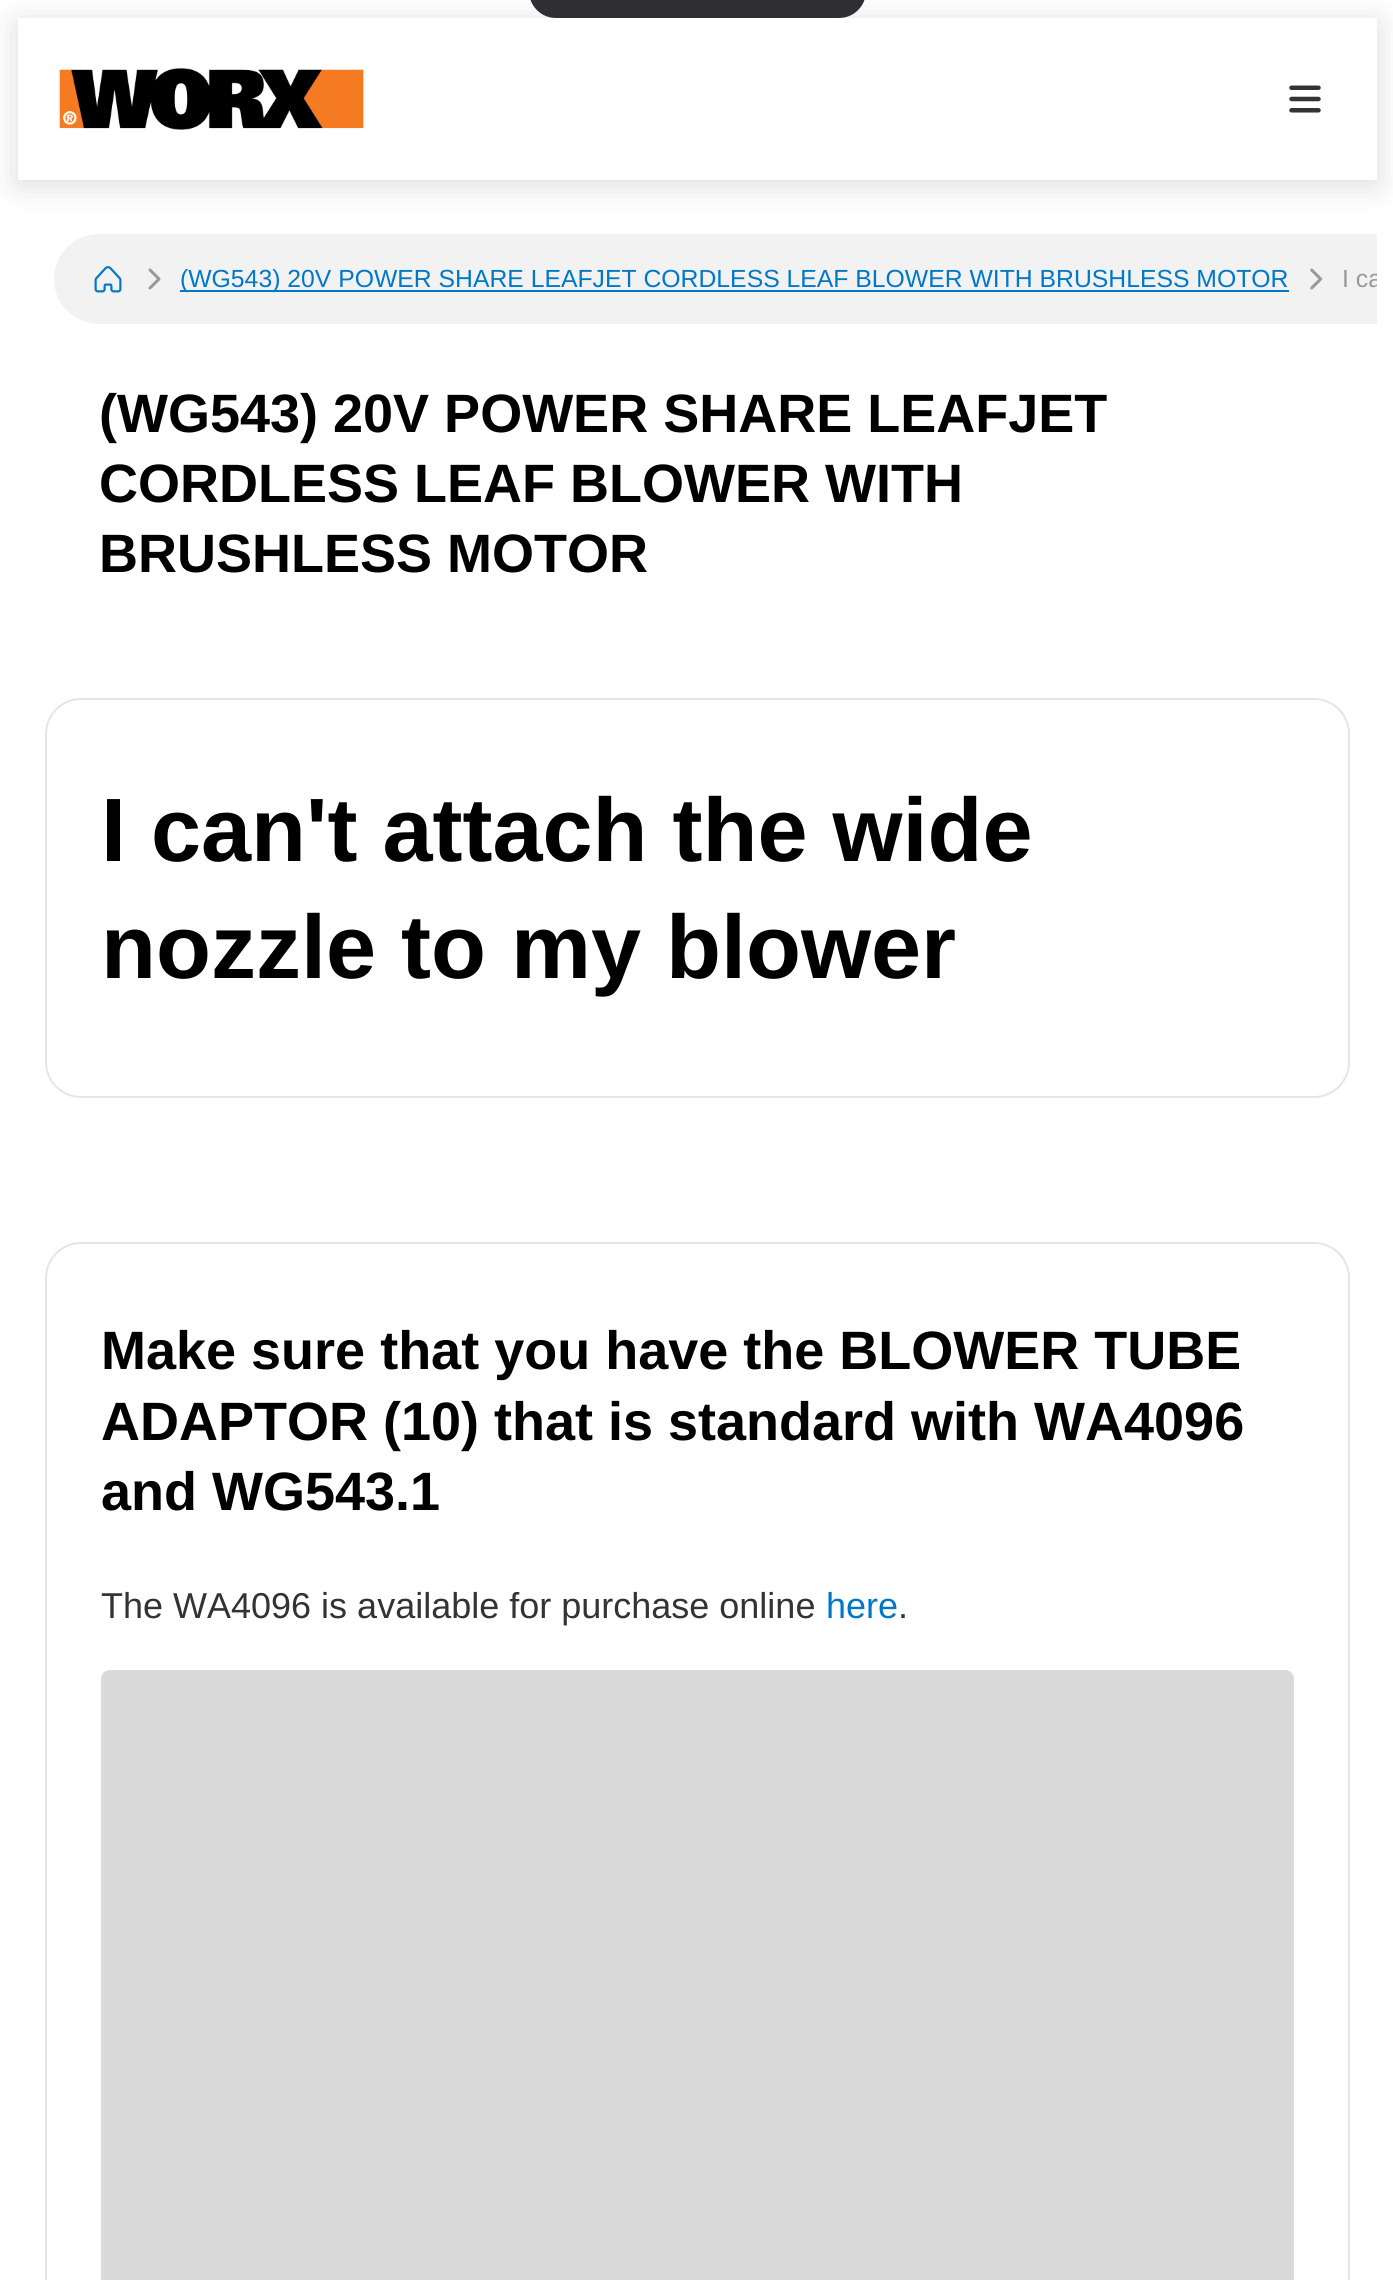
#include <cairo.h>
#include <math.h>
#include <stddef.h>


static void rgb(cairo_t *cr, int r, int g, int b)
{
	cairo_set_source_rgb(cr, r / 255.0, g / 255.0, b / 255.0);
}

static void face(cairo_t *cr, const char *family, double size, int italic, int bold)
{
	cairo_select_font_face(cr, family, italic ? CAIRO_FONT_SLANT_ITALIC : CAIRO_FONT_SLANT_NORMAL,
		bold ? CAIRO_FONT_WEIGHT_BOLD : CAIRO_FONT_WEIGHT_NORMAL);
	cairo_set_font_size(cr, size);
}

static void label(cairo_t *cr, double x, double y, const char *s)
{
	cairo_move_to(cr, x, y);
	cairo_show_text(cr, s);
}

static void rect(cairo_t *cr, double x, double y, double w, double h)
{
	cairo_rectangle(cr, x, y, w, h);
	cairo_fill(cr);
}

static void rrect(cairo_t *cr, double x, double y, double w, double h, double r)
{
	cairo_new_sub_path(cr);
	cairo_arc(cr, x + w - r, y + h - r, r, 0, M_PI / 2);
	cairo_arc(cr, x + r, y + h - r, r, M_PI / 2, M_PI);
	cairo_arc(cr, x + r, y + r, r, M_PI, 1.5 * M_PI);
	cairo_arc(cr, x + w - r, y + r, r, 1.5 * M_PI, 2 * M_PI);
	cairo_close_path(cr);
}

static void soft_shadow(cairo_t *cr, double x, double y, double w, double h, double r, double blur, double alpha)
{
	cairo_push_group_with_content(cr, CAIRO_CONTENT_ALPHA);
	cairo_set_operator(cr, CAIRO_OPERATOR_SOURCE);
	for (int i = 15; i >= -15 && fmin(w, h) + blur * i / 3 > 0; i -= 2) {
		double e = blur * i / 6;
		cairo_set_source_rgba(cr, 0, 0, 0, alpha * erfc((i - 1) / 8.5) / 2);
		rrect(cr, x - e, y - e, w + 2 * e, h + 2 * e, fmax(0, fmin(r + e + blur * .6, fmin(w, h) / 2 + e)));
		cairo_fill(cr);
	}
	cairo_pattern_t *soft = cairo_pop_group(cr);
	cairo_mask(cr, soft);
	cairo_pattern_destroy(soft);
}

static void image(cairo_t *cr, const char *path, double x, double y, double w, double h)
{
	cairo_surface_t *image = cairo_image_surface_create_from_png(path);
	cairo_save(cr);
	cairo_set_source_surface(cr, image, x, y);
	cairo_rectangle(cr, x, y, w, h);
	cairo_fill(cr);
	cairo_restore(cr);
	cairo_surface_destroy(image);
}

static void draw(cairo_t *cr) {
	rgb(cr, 255, 255, 255);
	cairo_paint(cr);
	cairo_save(cr);
	cairo_set_fill_rule(cr, CAIRO_FILL_RULE_EVEN_ODD);
	cairo_new_path(cr);
	cairo_move_to(cr, 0, 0);
	cairo_line_to(cr, 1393, 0);
	cairo_line_to(cr, 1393, 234);
	cairo_line_to(cr, 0, 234);
	cairo_close_path(cr);
	cairo_move_to(cr, 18, 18);
	cairo_line_to(cr, 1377, 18);
	cairo_line_to(cr, 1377, 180);
	cairo_line_to(cr, 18, 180);
	cairo_close_path(cr);
	cairo_clip(cr);
	rgb(cr, 0, 0, 0);
	soft_shadow(cr, 18, 23, 1359, 162, 0, 16, 0.14);
	cairo_restore(cr);
	rgb(cr, 47, 47, 51);
	rrect(cr, 529, -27, 337, 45, 27);
	cairo_fill(cr);
	image(cr, "image0.png", 59, 68, 305, 62);
	image(cr, "image1.png", 1289, 85, 32, 28);
	rgb(cr, 242, 242, 242);
	cairo_new_path(cr);
	cairo_move_to(cr, 99, 234);
	cairo_line_to(cr, 1377, 234);
	cairo_line_to(cr, 1377, 324);
	cairo_line_to(cr, 99, 324);
	cairo_curve_to(cr, 74, 324, 54, 304, 54, 279);
	cairo_curve_to(cr, 54, 254, 74, 234, 99, 234);
	cairo_close_path(cr);
	cairo_fill(cr);
	image(cr, "image2.png", 94, 266, 28, 27);
	image(cr, "image3.png", 148, 268, 13, 22);
	rgb(cr, 0, 120, 201);
	rect(cr, 180, 290, 1109, 2);
	face(cr, "Liberation Sans", 24.75, 0, 0);
	label(cr, 180, 287, "(WG543) 20V POWER SHARE LEAFJET CORDLESS LEAF BLOWER WITH BRUSHLESS MOTOR");
	image(cr, "image4.png", 1310, 268, 13, 22);
	cairo_save(cr);
	cairo_rectangle(cr, 18, 234, 1359, 90);
	cairo_clip(cr);
	rgb(cr, 153, 153, 153);
	label(cr, 1342, 287, "I ca");
	cairo_restore(cr);
	face(cr, "Liberation Sans", 54, 0, 1);
	rgb(cr, 0, 0, 0);
	label(cr, 99, 432, "(WG543) 20V POWER SHARE LEAFJET");
	label(cr, 99, 502, "CORDLESS LEAF BLOWER WITH");
	label(cr, 99, 572, "BRUSHLESS MOTOR");
	rrect(cr, 46, 699, 1303, 398, 35);
	rgb(cr, 229, 229, 229);
	cairo_stroke(cr);
	face(cr, "Liberation Sans", 90, 0, 1);
	rgb(cr, 0, 0, 0);
	label(cr, 101, 861, "I can't attach the wide");
	label(cr, 101, 978, "nozzle to my blower");
	rrect(cr, 46, 1243, 1303, 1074, 35);
	rgb(cr, 229, 229, 229);
	cairo_stroke(cr);
	face(cr, "Liberation Sans", 54, 0, 1);
	rgb(cr, 0, 0, 0);
	label(cr, 101, 1369, "Make sure that you have the BLOWER TUBE");
	label(cr, 101, 1440, "ADAPTOR (10) that is standard with WA4096");
	label(cr, 101, 1510, "and WG543.1");
	face(cr, "Liberation Sans", 36, 0, 0);
	rgb(cr, 51, 51, 51);
	label(cr, 101, 1618, "The WA4096 is available for purchase online");
	rgb(cr, 0, 120, 201);
	label(cr, 826, 1618, "here");
	rgb(cr, 51, 51, 51);
	label(cr, 898, 1618, ".");
	rgb(cr, 218, 218, 218);
	rrect(cr, 101, 1670, 1193, 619, 9);
	cairo_fill(cr);
}

int main(void) {
	cairo_surface_t *surface = cairo_image_surface_create(CAIRO_FORMAT_RGB24, 1393, 2280);
	cairo_t *cr = cairo_create(surface);
	cairo_font_options_t *options = cairo_font_options_create();
	cairo_font_options_set_hint_metrics(options, CAIRO_HINT_METRICS_OFF);
	cairo_font_options_set_hint_style(options, CAIRO_HINT_STYLE_NONE);
	cairo_set_font_options(cr, options);
	cairo_set_miter_limit(cr, 4);
	draw(cr);
	cairo_surface_write_to_png(surface, "render.png");
	cairo_font_options_destroy(options);
	cairo_destroy(cr);
	cairo_surface_destroy(surface);
	return 0;
}
